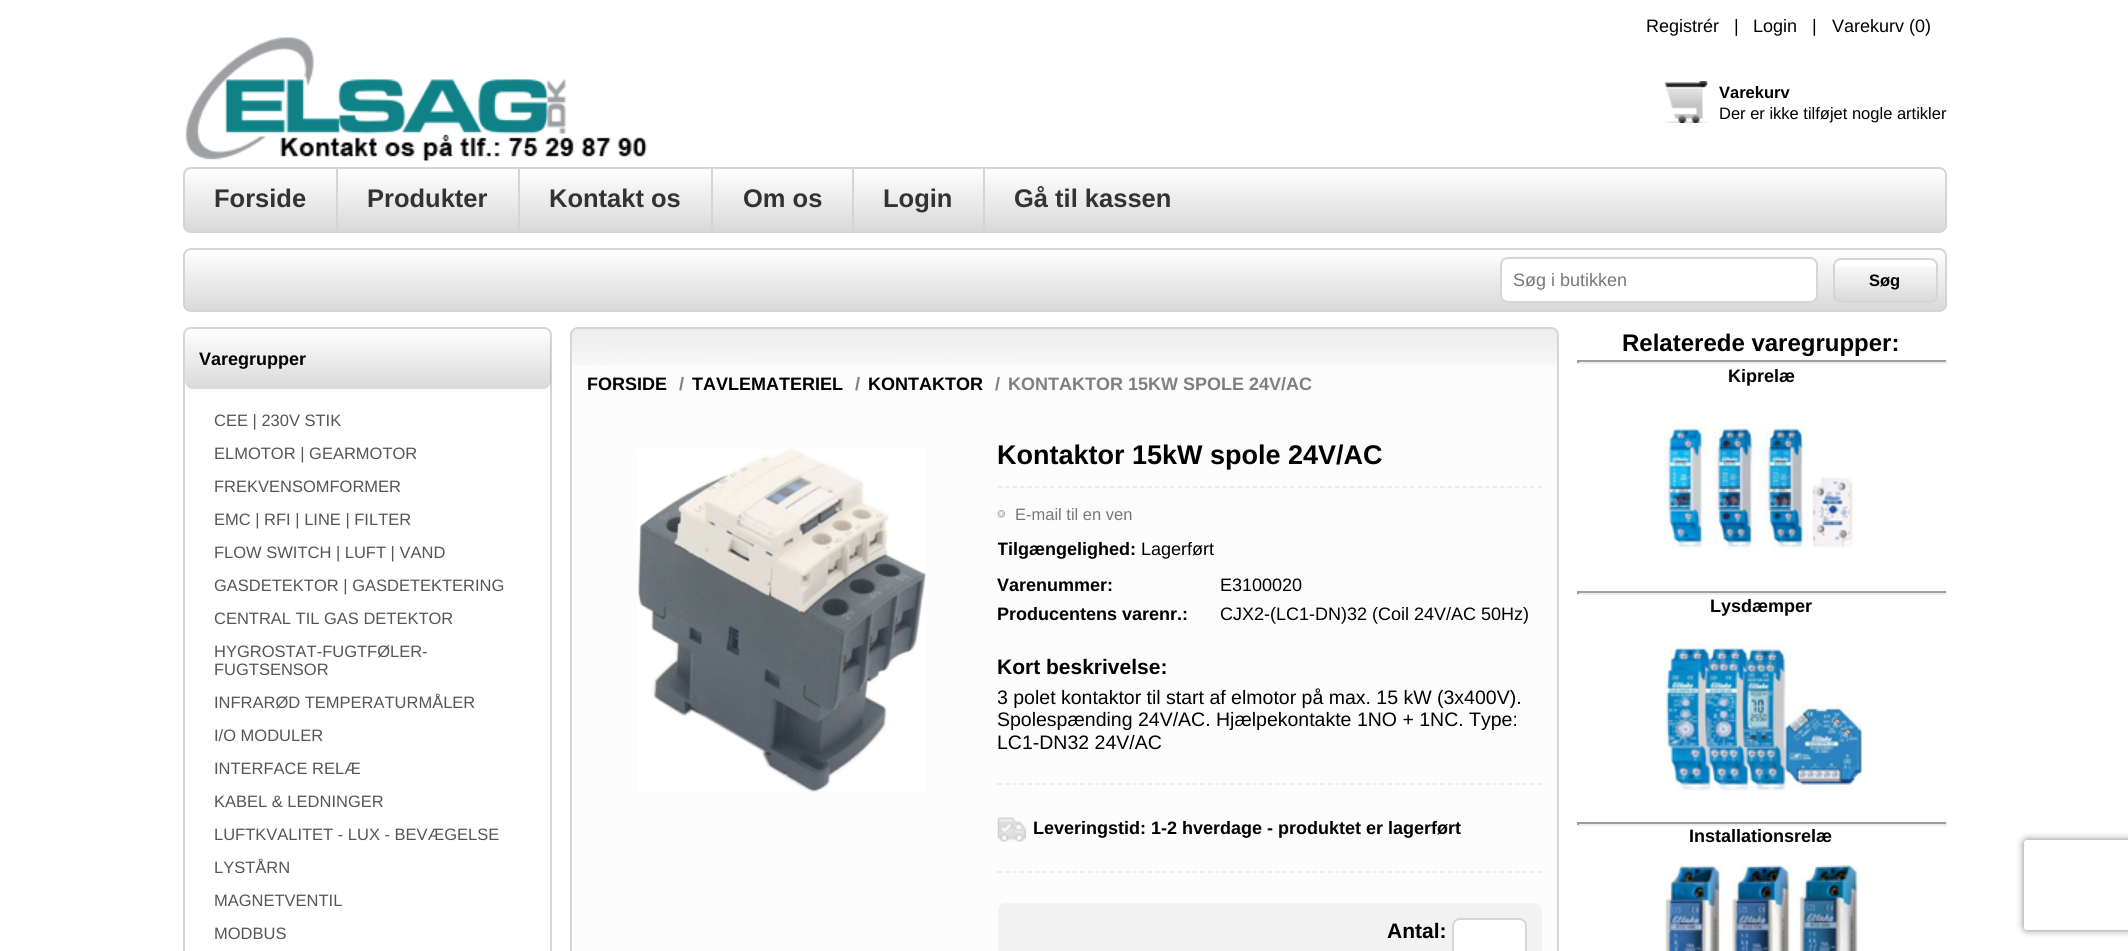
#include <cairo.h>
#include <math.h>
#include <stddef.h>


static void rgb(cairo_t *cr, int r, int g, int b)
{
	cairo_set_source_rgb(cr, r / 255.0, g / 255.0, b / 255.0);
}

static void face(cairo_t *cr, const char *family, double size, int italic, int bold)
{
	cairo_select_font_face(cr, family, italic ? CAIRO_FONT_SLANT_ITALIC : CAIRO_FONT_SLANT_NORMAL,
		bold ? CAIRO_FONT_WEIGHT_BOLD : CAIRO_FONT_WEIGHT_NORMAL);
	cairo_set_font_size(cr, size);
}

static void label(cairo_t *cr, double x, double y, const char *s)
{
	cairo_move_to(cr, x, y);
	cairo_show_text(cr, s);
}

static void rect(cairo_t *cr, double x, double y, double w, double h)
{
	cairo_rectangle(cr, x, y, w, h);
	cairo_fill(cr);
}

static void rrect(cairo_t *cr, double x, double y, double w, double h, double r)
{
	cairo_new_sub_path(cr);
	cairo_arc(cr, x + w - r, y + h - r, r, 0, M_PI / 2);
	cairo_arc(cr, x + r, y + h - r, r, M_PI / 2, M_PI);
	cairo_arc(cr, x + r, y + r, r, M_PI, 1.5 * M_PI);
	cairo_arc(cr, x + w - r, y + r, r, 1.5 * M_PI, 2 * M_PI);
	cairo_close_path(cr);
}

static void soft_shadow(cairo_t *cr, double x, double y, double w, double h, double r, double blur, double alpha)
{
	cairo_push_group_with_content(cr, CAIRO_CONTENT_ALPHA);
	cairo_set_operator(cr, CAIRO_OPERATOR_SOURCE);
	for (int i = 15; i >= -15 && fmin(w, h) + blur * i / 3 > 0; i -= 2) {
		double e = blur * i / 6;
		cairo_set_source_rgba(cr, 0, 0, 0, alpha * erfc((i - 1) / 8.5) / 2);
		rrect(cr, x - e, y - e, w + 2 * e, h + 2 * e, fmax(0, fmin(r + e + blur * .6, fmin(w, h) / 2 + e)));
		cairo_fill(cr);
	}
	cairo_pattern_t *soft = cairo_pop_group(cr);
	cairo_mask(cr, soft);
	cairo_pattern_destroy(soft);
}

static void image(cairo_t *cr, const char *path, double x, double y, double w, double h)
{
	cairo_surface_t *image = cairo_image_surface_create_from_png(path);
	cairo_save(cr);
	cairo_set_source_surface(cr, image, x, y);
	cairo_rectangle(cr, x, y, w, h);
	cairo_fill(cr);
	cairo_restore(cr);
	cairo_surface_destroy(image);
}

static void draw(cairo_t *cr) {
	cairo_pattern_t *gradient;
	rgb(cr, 255, 255, 255);
	cairo_paint(cr);
	face(cr, "Liberation Sans", 18, 0, 0);
	rgb(cr, 0, 0, 0);
	label(cr, 1646, 32, "Registrér");
	label(cr, 1734, 32, "|");
	label(cr, 1753, 32, "Login");
	label(cr, 1812, 32, "|");
	label(cr, 1832, 32, "Varekurv (0)");
	image(cr, "image0.png", 185, 37, 462, 124);
	image(cr, "image1.png", 1664, 81, 44, 42);
	face(cr, "Liberation Sans", 16.5, 0, 1);
	label(cr, 1719, 98, "Varekurv");
	face(cr, "Liberation Sans", 16.5, 0, 0);
	label(cr, 1719, 119, "Der er ikke tilføjet nogle artikler");
	cairo_save(cr);
	rrect(cr, 183, 167, 1764, 66, 8);
	cairo_clip(cr);
	gradient = cairo_pattern_create_linear(1065, 168, 1065, 231);
	cairo_pattern_add_color_stop_rgba(gradient, 0, 1, 1, 1, 1);
	cairo_pattern_add_color_stop_rgba(gradient, 1, 0.851, 0.851, 0.851, 1);
	cairo_set_source(cr, gradient);
	cairo_pattern_destroy(gradient);
	rect(cr, 183, 168, 1764, 63);
	cairo_restore(cr);
	rrect(cr, 184, 168, 1762, 64, 7);
	rgb(cr, 213, 213, 213);
	cairo_stroke(cr);
	face(cr, "Liberation Sans", 25.5, 0, 1);
	rgb(cr, 51, 51, 51);
	label(cr, 214, 207, "Forside");
	rgb(cr, 213, 213, 213);
	rect(cr, 336, 168, 2, 63);
	rgb(cr, 51, 51, 51);
	label(cr, 367, 207, "Produkter");
	rgb(cr, 213, 213, 213);
	rect(cr, 518, 168, 2, 63);
	rgb(cr, 51, 51, 51);
	label(cr, 549, 207, "Kontakt os");
	rgb(cr, 213, 213, 213);
	rect(cr, 711, 168, 2, 63);
	rgb(cr, 51, 51, 51);
	label(cr, 743, 207, "Om os");
	rgb(cr, 213, 213, 213);
	rect(cr, 852, 168, 2, 63);
	rgb(cr, 51, 51, 51);
	label(cr, 883, 207, "Login");
	rgb(cr, 213, 213, 213);
	rect(cr, 983, 168, 2, 63);
	rgb(cr, 51, 51, 51);
	label(cr, 1014, 207, "Gå til kassen");
	cairo_save(cr);
	rrect(cr, 183, 248, 1764, 64, 8);
	cairo_clip(cr);
	gradient = cairo_pattern_create_linear(1065, 249, 1065, 311);
	cairo_pattern_add_color_stop_rgba(gradient, 0, 1, 1, 1, 1);
	cairo_pattern_add_color_stop_rgba(gradient, 1, 0.851, 0.851, 0.851, 1);
	cairo_set_source(cr, gradient);
	cairo_pattern_destroy(gradient);
	rect(cr, 183, 249, 1764, 62);
	cairo_restore(cr);
	rrect(cr, 184, 249, 1762, 62, 7);
	rgb(cr, 213, 213, 213);
	cairo_stroke(cr);
	rgb(cr, 255, 255, 255);
	rrect(cr, 1501, 258, 316, 44, 7);
	cairo_fill_preserve(cr);
	rgb(cr, 214, 214, 214);
	cairo_stroke(cr);
	face(cr, "Liberation Sans", 18, 0, 0);
	rgb(cr, 119, 119, 119);
	label(cr, 1513, 286, "Søg i butikken");
	rgb(cr, 255, 255, 255);
	rrect(cr, 1833, 258, 105, 45, 8);
	cairo_fill(cr);
	cairo_save(cr);
	rrect(cr, 1833, 258, 105, 45, 8);
	cairo_clip(cr);
	gradient = cairo_pattern_create_linear(1886, 260, 1886, 302);
	cairo_pattern_add_color_stop_rgba(gradient, 0, 0, 0, 0, 0);
	cairo_pattern_add_color_stop_rgba(gradient, 1, 0, 0, 0, 0.15);
	cairo_set_source(cr, gradient);
	cairo_pattern_destroy(gradient);
	rect(cr, 1833, 266, 105, 36);
	cairo_restore(cr);
	rrect(cr, 1834, 259, 103, 43, 7);
	rgb(cr, 213, 213, 213);
	cairo_stroke(cr);
	face(cr, "Liberation Sans", 16.5, 0, 1);
	rgb(cr, 0, 0, 0);
	label(cr, 1869, 286, "Søg");
	rrect(cr, 184, 328, 367, 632, 7);
	rgb(cr, 214, 214, 214);
	cairo_stroke(cr);
	gradient = cairo_pattern_create_linear(368, 329, 368, 389);
	cairo_pattern_add_color_stop_rgba(gradient, 0, 0, 0, 0, 0);
	cairo_pattern_add_color_stop_rgba(gradient, 1, 0, 0, 0, 0.15);
	cairo_set_source(cr, gradient);
	cairo_pattern_destroy(gradient);
	rrect(cr, 185, 329, 366, 60, 8);
	cairo_fill(cr);
	face(cr, "Liberation Sans", 18, 0, 1);
	rgb(cr, 0, 0, 0);
	label(cr, 199, 365, "Varegrupper");
	face(cr, "Liberation Sans", 16.5, 0, 0);
	rgb(cr, 85, 85, 85);
	label(cr, 214, 426, "CEE | 230V STIK");
	label(cr, 214, 459, "ELMOTOR | GEARMOTOR");
	label(cr, 214, 492, "FREKVENSOMFORMER");
	label(cr, 214, 525, "EMC | RFI | LINE | FILTER");
	label(cr, 214, 558, "FLOW SWITCH | LUFT | VAND");
	label(cr, 214, 591, "GASDETEKTOR | GASDETEKTERING");
	label(cr, 214, 624, "CENTRAL TIL GAS DETEKTOR");
	label(cr, 214, 657, "HYGROSTAT-FUGTFØLER-");
	label(cr, 214, 675, "FUGTSENSOR");
	label(cr, 214, 708, "INFRARØD TEMPERATURMÅLER");
	label(cr, 214, 741, "I/O MODULER");
	label(cr, 214, 774, "INTERFACE RELÆ");
	label(cr, 214, 807, "KABEL & LEDNINGER");
	label(cr, 214, 840, "LUFTKVALITET - LUX - BEVÆGELSE");
	label(cr, 214, 873, "LYSTÅRN");
	label(cr, 214, 906, "MAGNETVENTIL");
	label(cr, 214, 939, "MODBUS");
	rgb(cr, 252, 252, 252);
	rrect(cr, 570, 327, 989, 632, 8);
	cairo_fill(cr);
	image(cr, "image2.png", 570, 328, 988, 38);
	rrect(cr, 571, 328, 987, 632, 7);
	rgb(cr, 214, 214, 214);
	cairo_stroke(cr);
	face(cr, "Liberation Sans", 18, 0, 1);
	rgb(cr, 0, 0, 0);
	label(cr, 587, 390, "FORSIDE");
	rgb(cr, 127, 127, 127);
	label(cr, 679, 390, "/");
	rgb(cr, 0, 0, 0);
	label(cr, 692, 390, "TAVLEMATERIEL");
	rgb(cr, 127, 127, 127);
	label(cr, 855, 390, "/");
	rgb(cr, 0, 0, 0);
	label(cr, 868, 390, "KONTAKTOR");
	rgb(cr, 127, 127, 127);
	label(cr, 995, 390, "/");
	label(cr, 1008, 390, "KONTAKTOR 15KW SPOLE 24V/AC");
	image(cr, "image3.png", 637, 449, 289, 343);
	cairo_new_path(cr);
	cairo_move_to(cr, 997.5, 487);
	cairo_line_to(cr, 1542, 487);
	rgb(cr, 230, 230, 230);
	cairo_set_line_width(cr, 1.5);
	cairo_set_dash(cr, (double[]){4.5, 3}, 2, 0);
	cairo_stroke(cr);
	face(cr, "Liberation Sans", 27, 0, 1);
	rgb(cr, 0, 0, 0);
	label(cr, 997, 464, "Kontaktor 15kW spole 24V/AC");
	image(cr, "image4.png", 997, 510, 8, 8);
	face(cr, "Liberation Sans", 16.5, 0, 0);
	rgb(cr, 119, 119, 119);
	label(cr, 1015, 520, "E-mail til en ven");
	cairo_save(cr);
	cairo_rectangle(cr, 998, 425, 544, 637);
	cairo_clip(cr);
	face(cr, "Liberation Sans", 18, 0, 1);
	rgb(cr, 0, 0, 0);
	label(cr, 997, 555, "Tilgængelighed:");
	cairo_restore(cr);
	face(cr, "Liberation Sans", 18, 0, 0);
	rgb(cr, 0, 0, 0);
	label(cr, 1141, 555, "Lagerført");
	face(cr, "Liberation Sans", 18, 0, 1);
	label(cr, 997, 591, "Varenummer:");
	face(cr, "Liberation Sans", 18, 0, 0);
	label(cr, 1220, 591, "E3100020");
	face(cr, "Liberation Sans", 18, 0, 1);
	label(cr, 997, 620, "Producentens varenr.:");
	face(cr, "Liberation Sans", 18, 0, 0);
	label(cr, 1220, 620, "CJX2-(LC1-DN)32 (Coil 24V/AC 50Hz)");
	cairo_new_path(cr);
	cairo_move_to(cr, 997.5, 784);
	cairo_line_to(cr, 1542, 784);
	rgb(cr, 230, 230, 230);
	cairo_stroke(cr);
	face(cr, "Liberation Sans", 21, 0, 1);
	rgb(cr, 0, 0, 0);
	label(cr, 997, 674, "Kort beskrivelse:");
	face(cr, "Liberation Sans", 19.5, 0, 0);
	label(cr, 997, 704, "3 polet kontaktor til start af elmotor på max. 15 kW (3x400V).");
	label(cr, 997, 726, "Spolespænding 24V/AC. Hjælpekontakte 1NO + 1NC. Type:");
	label(cr, 997, 749, "LC1-DN32 24V/AC");
	cairo_new_path(cr);
	cairo_move_to(cr, 997.5, 872);
	cairo_line_to(cr, 1542, 872);
	rgb(cr, 230, 230, 230);
	cairo_stroke(cr);
	image(cr, "image5.png", 997, 817, 29, 25);
	face(cr, "Liberation Sans", 18, 0, 1);
	rgb(cr, 0, 0, 0);
	label(cr, 1033, 834, "Leveringstid: 1-2 hverdage - produktet er lagerført");
	rgb(cr, 242, 242, 242);
	rrect(cr, 998, 903, 544, 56, 8);
	cairo_fill(cr);
	face(cr, "Liberation Sans", 21, 0, 1);
	rgb(cr, 0, 0, 0);
	label(cr, 1387, 938, "Antal:");
	rgb(cr, 255, 255, 255);
	rrect(cr, 1453, 919, 73, 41, 7);
	cairo_fill_preserve(cr);
	rgb(cr, 214, 214, 214);
	cairo_set_line_width(cr, 2);
	cairo_set_dash(cr, NULL, 0, 0);
	cairo_stroke(cr);
	face(cr, "Liberation Sans", 24, 0, 1);
	rgb(cr, 0, 0, 0);
	label(cr, 1622, 351, "Relaterede varegrupper:");
	rgb(cr, 159, 159, 159);
	rect(cr, 1577, 360, 370, 2);
	rgb(cr, 238, 238, 238);
	rect(cr, 1946, 360, 1, 3);
	rect(cr, 1577, 362, 370, 2);
	rgb(cr, 159, 159, 159);
	rect(cr, 1577, 360, 2, 3);
	face(cr, "Liberation Sans", 18, 0, 1);
	rgb(cr, 0, 0, 0);
	label(cr, 1728, 382, "Kiprelæ");
	image(cr, "image6.png", 1663, 423, 190, 126);
	rgb(cr, 159, 159, 159);
	rect(cr, 1577, 591, 370, 2);
	rgb(cr, 238, 238, 238);
	rect(cr, 1946, 591, 1, 3);
	rect(cr, 1577, 593, 370, 2);
	rgb(cr, 159, 159, 159);
	rect(cr, 1577, 591, 2, 3);
	rgb(cr, 0, 0, 0);
	label(cr, 1710, 612, "Lysdæmper");
	image(cr, "image7.png", 1666, 645, 196, 146);
	rgb(cr, 159, 159, 159);
	rect(cr, 1577, 822, 370, 2);
	rgb(cr, 238, 238, 238);
	rect(cr, 1946, 822, 1, 3);
	rect(cr, 1577, 824, 370, 2);
	rgb(cr, 159, 159, 159);
	rect(cr, 1577, 822, 2, 3);
	rgb(cr, 0, 0, 0);
	label(cr, 1689, 842, "Installationsrelæ");
	image(cr, "image8.png", 1663, 865, 195, 86);
	cairo_save(cr);
	cairo_set_fill_rule(cr, CAIRO_FILL_RULE_EVEN_ODD);
	cairo_new_path(cr);
	cairo_move_to(cr, 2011, 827);
	cairo_line_to(cr, 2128, 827);
	cairo_line_to(cr, 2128, 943);
	cairo_line_to(cr, 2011, 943);
	cairo_close_path(cr);
	cairo_move_to(cr, 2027, 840);
	cairo_line_to(cr, 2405, 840);
	cairo_curve_to(cr, 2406.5, 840, 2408, 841.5, 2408, 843);
	cairo_line_to(cr, 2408, 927);
	cairo_curve_to(cr, 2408, 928.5, 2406.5, 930, 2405, 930);
	cairo_line_to(cr, 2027, 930);
	cairo_curve_to(cr, 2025.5, 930, 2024, 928.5, 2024, 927);
	cairo_line_to(cr, 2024, 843);
	cairo_curve_to(cr, 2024, 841.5, 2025.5, 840, 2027, 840);
	cairo_close_path(cr);
	cairo_clip(cr);
	rgb(cr, 128, 128, 128);
	soft_shadow(cr, 2024, 840, 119, 90, 3, 4, 1);
	cairo_restore(cr);
}

int main(void) {
	cairo_surface_t *surface = cairo_image_surface_create(CAIRO_FORMAT_RGB24, 2128, 951);
	cairo_t *cr = cairo_create(surface);
	cairo_font_options_t *options = cairo_font_options_create();
	cairo_font_options_set_hint_metrics(options, CAIRO_HINT_METRICS_OFF);
	cairo_font_options_set_hint_style(options, CAIRO_HINT_STYLE_NONE);
	cairo_set_font_options(cr, options);
	cairo_set_miter_limit(cr, 4);
	draw(cr);
	cairo_surface_write_to_png(surface, "render.png");
	cairo_font_options_destroy(options);
	cairo_destroy(cr);
	cairo_surface_destroy(surface);
	return 0;
}
